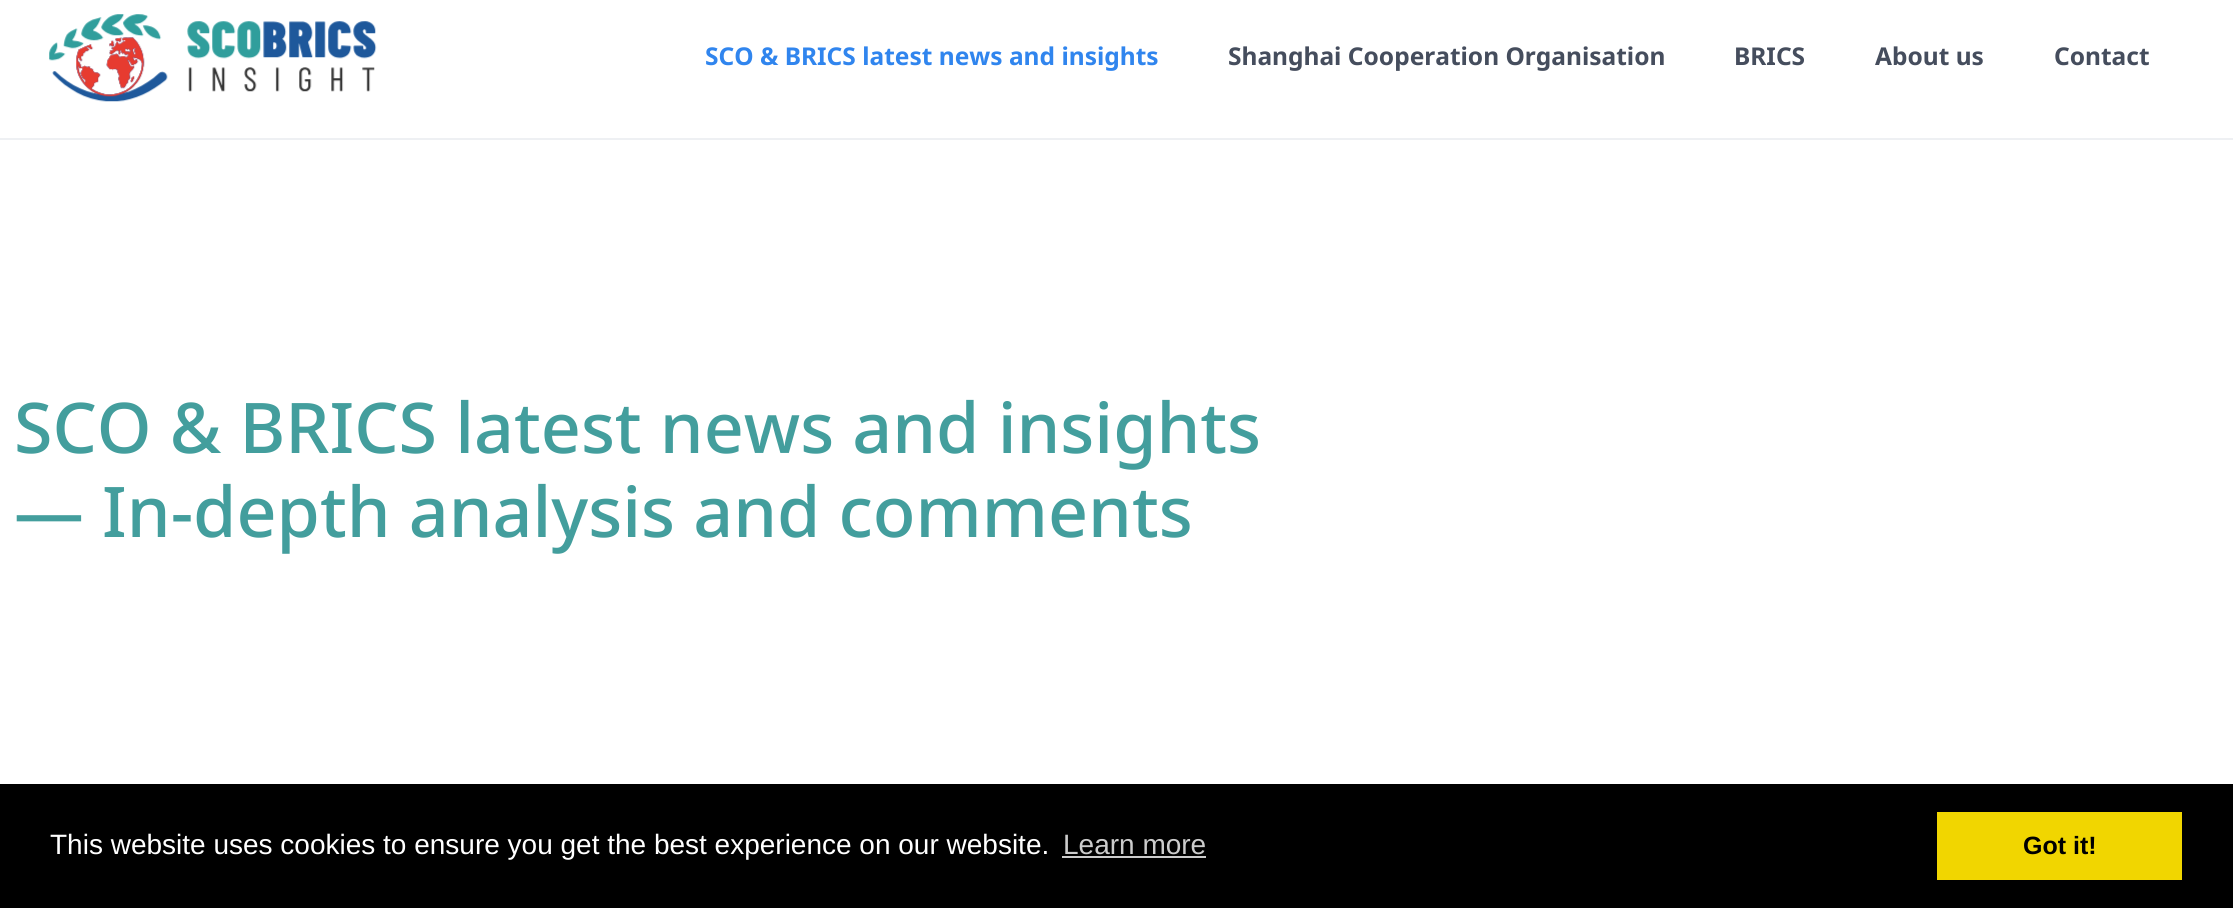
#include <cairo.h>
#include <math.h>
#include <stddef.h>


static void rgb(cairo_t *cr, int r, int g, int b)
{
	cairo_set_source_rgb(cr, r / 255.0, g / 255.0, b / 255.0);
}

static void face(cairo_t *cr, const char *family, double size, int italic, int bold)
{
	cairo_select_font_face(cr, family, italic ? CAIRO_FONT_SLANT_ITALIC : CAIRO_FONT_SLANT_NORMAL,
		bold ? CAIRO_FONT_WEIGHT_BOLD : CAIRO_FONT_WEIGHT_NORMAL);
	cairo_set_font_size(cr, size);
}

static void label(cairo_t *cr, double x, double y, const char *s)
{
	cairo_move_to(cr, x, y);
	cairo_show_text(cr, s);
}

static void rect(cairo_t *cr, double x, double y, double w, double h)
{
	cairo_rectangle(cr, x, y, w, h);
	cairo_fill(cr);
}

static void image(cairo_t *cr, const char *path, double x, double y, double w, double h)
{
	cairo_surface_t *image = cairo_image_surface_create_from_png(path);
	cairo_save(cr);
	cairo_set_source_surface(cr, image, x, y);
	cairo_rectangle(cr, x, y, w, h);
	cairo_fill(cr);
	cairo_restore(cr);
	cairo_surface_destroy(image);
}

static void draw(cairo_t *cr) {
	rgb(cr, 255, 255, 255);
	cairo_paint(cr);
	rgb(cr, 238, 240, 243);
	rect(cr, 0, 138, 2233, 2);
	image(cr, "image0.png", 49, 14, 328, 88);
	face(cr, "Noto Sans", 24.5, 0, 1);
	rgb(cr, 48, 133, 238);
	label(cr, 705, 65, "SCO & BRICS latest news and insights");
	rgb(cr, 69, 77, 93);
	label(cr, 1228, 65, "Shanghai Cooperation Organisation");
	label(cr, 1734, 65, "BRICS");
	label(cr, 1875, 65, "About us");
	label(cr, 2054, 65, "Contact");
	face(cr, "Noto Sans Medium", 69.9, 0, 0);
	rgb(cr, 67, 158, 157);
	label(cr, 14, 453, "SCO & BRICS latest news and insights");
	label(cr, 14, 537, "— In-depth analysis and comments");
	rgb(cr, 0, 0, 0);
	rect(cr, 0, 784, 2233, 124);
	face(cr, "Liberation Sans", 28, 0, 0);
	rgb(cr, 255, 255, 255);
	label(cr, 50, 854, "This website uses cookies to ensure you get the best experience on our website.");
	rgb(cr, 204, 204, 204);
	label(cr, 1063, 854, "Learn more");
	rect(cr, 1062, 856, 144, 2);
	rgb(cr, 241, 214, 0);
	rect(cr, 1937, 812, 245, 68);
	face(cr, "Liberation Sans", 25, 0, 1);
	rgb(cr, 0, 0, 0);
	label(cr, 2023, 854, "Got it!");
}

int main(void) {
	cairo_surface_t *surface = cairo_image_surface_create(CAIRO_FORMAT_RGB24, 2233, 908);
	cairo_t *cr = cairo_create(surface);
	cairo_font_options_t *options = cairo_font_options_create();
	cairo_font_options_set_hint_metrics(options, CAIRO_HINT_METRICS_OFF);
	cairo_font_options_set_hint_style(options, CAIRO_HINT_STYLE_NONE);
	cairo_set_font_options(cr, options);
	cairo_set_miter_limit(cr, 4);
	draw(cr);
	cairo_surface_write_to_png(surface, "render.png");
	cairo_font_options_destroy(options);
	cairo_destroy(cr);
	cairo_surface_destroy(surface);
	return 0;
}
